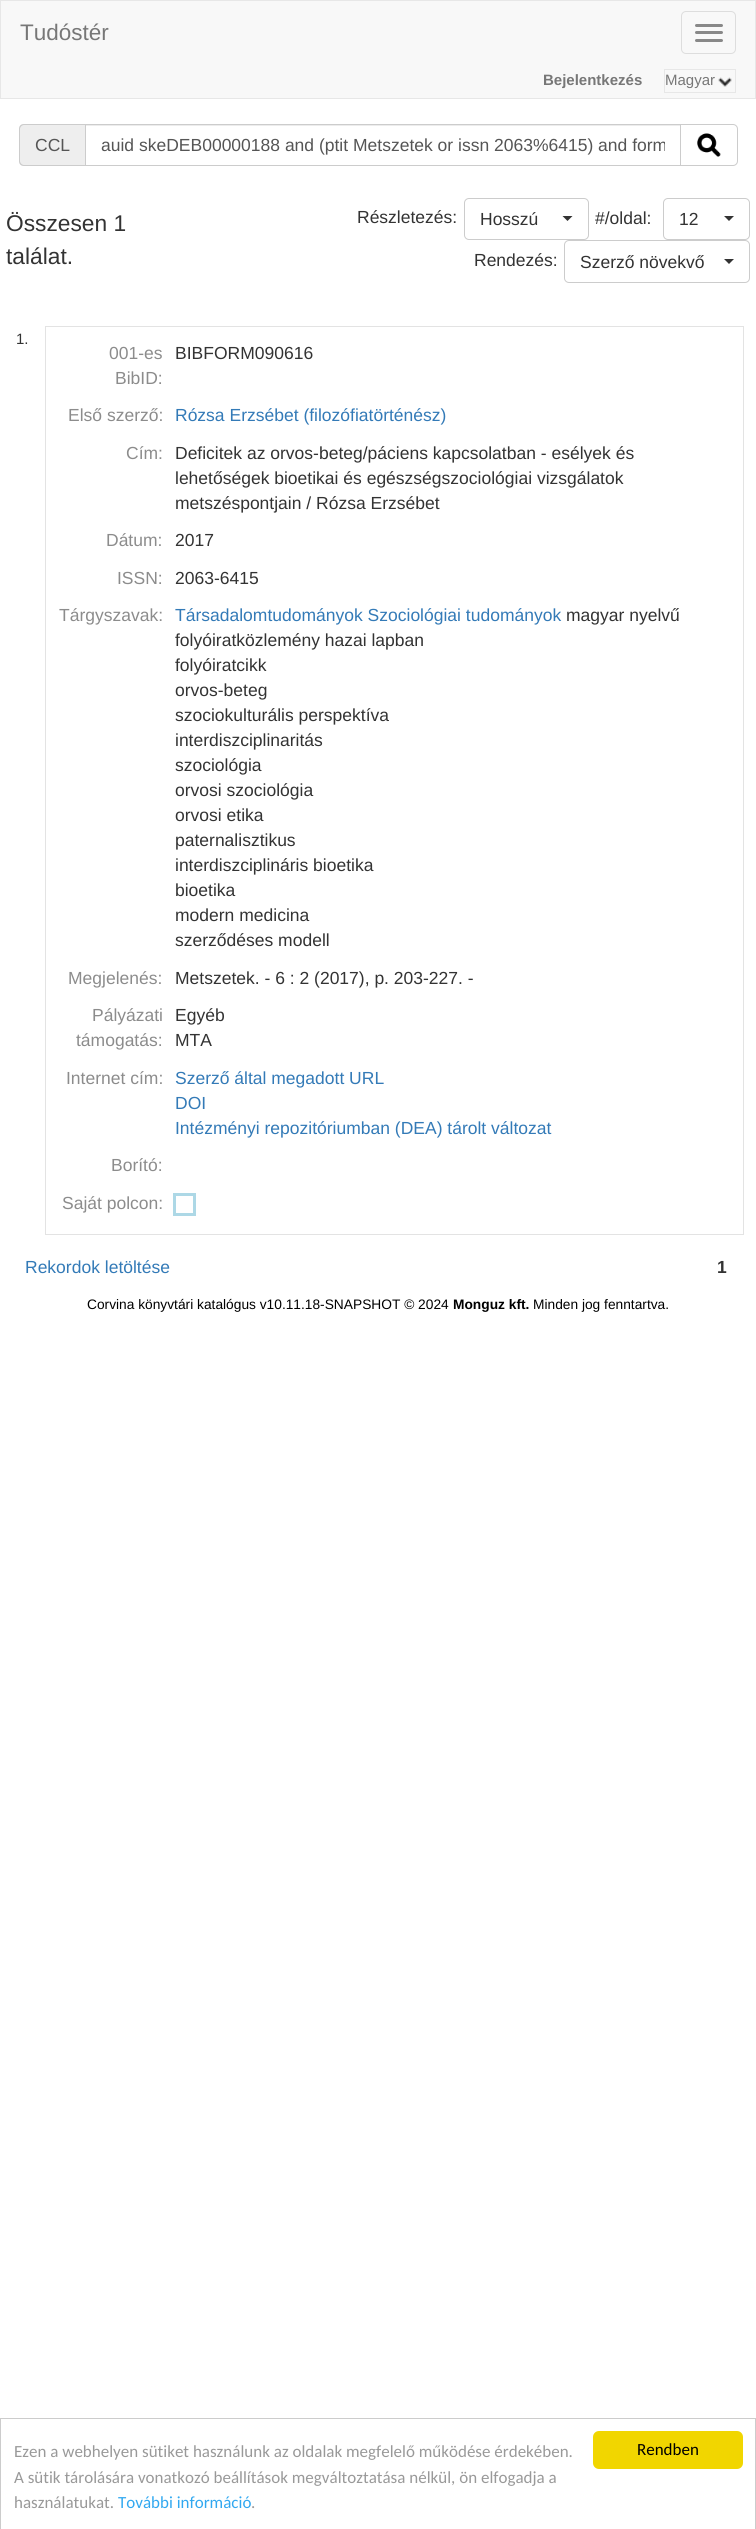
#include <cairo.h>
#include <math.h>
#include <stddef.h>


static void rgb(cairo_t *cr, int r, int g, int b)
{
	cairo_set_source_rgb(cr, r / 255.0, g / 255.0, b / 255.0);
}

static void face(cairo_t *cr, const char *family, double size, int italic, int bold)
{
	cairo_select_font_face(cr, family, italic ? CAIRO_FONT_SLANT_ITALIC : CAIRO_FONT_SLANT_NORMAL,
		bold ? CAIRO_FONT_WEIGHT_BOLD : CAIRO_FONT_WEIGHT_NORMAL);
	cairo_set_font_size(cr, size);
}

static void label(cairo_t *cr, double x, double y, const char *s)
{
	cairo_move_to(cr, x, y);
	cairo_show_text(cr, s);
}

static void rect(cairo_t *cr, double x, double y, double w, double h)
{
	cairo_rectangle(cr, x, y, w, h);
	cairo_fill(cr);
}

static void rrect(cairo_t *cr, double x, double y, double w, double h, double r)
{
	cairo_new_sub_path(cr);
	cairo_arc(cr, x + w - r, y + h - r, r, 0, M_PI / 2);
	cairo_arc(cr, x + r, y + h - r, r, M_PI / 2, M_PI);
	cairo_arc(cr, x + r, y + r, r, M_PI, 1.5 * M_PI);
	cairo_arc(cr, x + w - r, y + r, r, 1.5 * M_PI, 2 * M_PI);
	cairo_close_path(cr);
}

static void image(cairo_t *cr, const char *path, double x, double y, double w, double h)
{
	cairo_surface_t *image = cairo_image_surface_create_from_png(path);
	cairo_save(cr);
	cairo_set_source_surface(cr, image, x, y);
	cairo_rectangle(cr, x, y, w, h);
	cairo_fill(cr);
	cairo_restore(cr);
	cairo_surface_destroy(image);
}

static void draw(cairo_t *cr) {
	rgb(cr, 255, 255, 255);
	cairo_paint(cr);
	rgb(cr, 248, 248, 248);
	cairo_rectangle(cr, 0.5, 0.5, 755, 98);
	cairo_fill_preserve(cr);
	rgb(cr, 231, 231, 231);
	cairo_set_line_width(cr, 1);
	cairo_stroke(cr);
	face(cr, "Liberation Sans", 22.5, 0, 0);
	rgb(cr, 119, 119, 119);
	label(cr, 20, 40, "Tudóstér");
	rrect(cr, 681.5, 11.5, 54, 42, 4.5);
	rgb(cr, 221, 221, 221);
	cairo_stroke(cr);
	rgb(cr, 136, 136, 136);
	rrect(cr, 695, 24, 28, 3, 1.5);
	cairo_fill(cr);
	rrect(cr, 695, 31, 28, 3, 1.5);
	cairo_fill(cr);
	rrect(cr, 695, 39, 28, 3, 1.5);
	cairo_fill(cr);
	face(cr, "Liberation Sans", 15, 0, 1);
	rgb(cr, 119, 119, 119);
	label(cr, 543, 85, "Bejelentkezés");
	image(cr, "image0.png", 718, 77, 14, 10);
	cairo_rectangle(cr, 664.5, 69.5, 71, 23);
	rgb(cr, 231, 231, 231);
	cairo_stroke(cr);
	face(cr, "Liberation Sans", 15, 0, 0);
	rgb(cr, 119, 119, 119);
	label(cr, 665, 85, "Magyar");
	rgb(cr, 238, 238, 238);
	cairo_new_path(cr);
	cairo_move_to(cr, 24, 124);
	cairo_line_to(cr, 85, 124);
	cairo_line_to(cr, 85, 166);
	cairo_line_to(cr, 24, 166);
	cairo_curve_to(cr, 21, 166, 19, 164, 19, 161);
	cairo_line_to(cr, 19, 129);
	cairo_curve_to(cr, 19, 126, 21, 124, 24, 124);
	cairo_close_path(cr);
	cairo_fill(cr);
	rgb(cr, 204, 204, 204);
	cairo_set_fill_rule(cr, CAIRO_FILL_RULE_EVEN_ODD);
	cairo_new_path(cr);
	cairo_move_to(cr, 24, 124);
	cairo_line_to(cr, 85, 124);
	cairo_line_to(cr, 85, 166);
	cairo_line_to(cr, 24, 166);
	cairo_curve_to(cr, 21, 166, 19, 164, 19, 161);
	cairo_line_to(cr, 19, 129);
	cairo_curve_to(cr, 19, 126, 21, 124, 24, 124);
	cairo_close_path(cr);
	cairo_move_to(cr, 24, 125);
	cairo_line_to(cr, 85, 125);
	cairo_line_to(cr, 85, 165);
	cairo_line_to(cr, 24, 165);
	cairo_curve_to(cr, 22, 165, 20, 163, 20, 161);
	cairo_line_to(cr, 20, 129);
	cairo_curve_to(cr, 20, 127, 22, 125, 24, 125);
	cairo_close_path(cr);
	cairo_fill(cr);
	face(cr, "Liberation Sans", 17.5, 0, 0);
	rgb(cr, 85, 85, 85);
	label(cr, 35, 151, "CCL");
	rgb(cr, 236, 236, 236);
	rect(cr, 86, 125, 594, 1);
	cairo_rectangle(cr, 85.5, 124.5, 595, 41);
	rgb(cr, 204, 204, 204);
	cairo_stroke(cr);
	cairo_save(cr);
	cairo_set_fill_rule(cr, CAIRO_FILL_RULE_WINDING);
	cairo_rectangle(cr, 101, 135, 564, 20);
	cairo_clip(cr);
	rgb(cr, 85, 85, 85);
	label(cr, 101, 151, "auid skeDEB00000188 and (ptit Metszetek or issn 2063%6415) and form");
	cairo_restore(cr);
	rgb(cr, 255, 255, 255);
	cairo_new_path(cr);
	cairo_move_to(cr, 680.5, 124.5);
	cairo_line_to(cr, 733, 124.5);
	cairo_curve_to(cr, 735.5, 124.5, 737.5, 126.5, 737.5, 129);
	cairo_line_to(cr, 737.5, 161);
	cairo_curve_to(cr, 737.5, 163.5, 735.5, 165.5, 733, 165.5);
	cairo_line_to(cr, 680.5, 165.5);
	cairo_close_path(cr);
	cairo_fill_preserve(cr);
	rgb(cr, 204, 204, 204);
	cairo_stroke(cr);
	image(cr, "image1.png", 697, 133, 24, 24);
	face(cr, "Liberation Sans", 22.75, 0, 0);
	rgb(cr, 51, 51, 51);
	label(cr, 6, 231, "Összesen 1");
	label(cr, 6, 264, "találat.");
	face(cr, "Liberation Sans", 17.5, 0, 0);
	label(cr, 357, 223, "Részletezés:");
	rrect(cr, 464.5, 198.5, 124, 41, 4.5);
	rgb(cr, 204, 204, 204);
	cairo_stroke(cr);
	rgb(cr, 51, 51, 51);
	label(cr, 480, 225, "Hosszú");
	cairo_set_fill_rule(cr, CAIRO_FILL_RULE_WINDING);
	cairo_new_path(cr);
	cairo_move_to(cr, 562.5, 216);
	cairo_line_to(cr, 572.5, 216);
	cairo_line_to(cr, 567.5, 221);
	cairo_close_path(cr);
	cairo_fill(cr);
	label(cr, 595, 224, "#/oldal:");
	rrect(cr, 663.5, 198.5, 86, 41, 4.5);
	rgb(cr, 204, 204, 204);
	cairo_stroke(cr);
	rgb(cr, 51, 51, 51);
	label(cr, 679, 225, "12");
	cairo_new_path(cr);
	cairo_move_to(cr, 724, 216);
	cairo_line_to(cr, 734, 216);
	cairo_line_to(cr, 729, 221);
	cairo_close_path(cr);
	cairo_fill(cr);
	label(cr, 474, 266, "Rendezés:");
	rrect(cr, 564.5, 240.5, 185, 42, 4.5);
	rgb(cr, 204, 204, 204);
	cairo_stroke(cr);
	rgb(cr, 51, 51, 51);
	label(cr, 580, 268, "Szerző növekvő");
	cairo_new_path(cr);
	cairo_move_to(cr, 724, 259);
	cairo_line_to(cr, 734, 259);
	cairo_line_to(cr, 729, 264);
	cairo_close_path(cr);
	cairo_fill(cr);
	face(cr, "Liberation Sans", 15, 0, 0);
	label(cr, 16, 344, "1.");
	rgb(cr, 227, 227, 227);
	rect(cr, 45, 326, 699, 1);
	rect(cr, 743, 326, 1, 909);
	rect(cr, 45, 1234, 699, 1);
	rect(cr, 45, 326, 1, 909);
	face(cr, "Liberation Sans", 17.5, 0, 0);
	rgb(cr, 140, 140, 140);
	label(cr, 109, 359, "001-es");
	label(cr, 115, 384, "BibID:");
	rgb(cr, 51, 51, 51);
	label(cr, 175, 359, "BIBFORM090616");
	rgb(cr, 140, 140, 140);
	label(cr, 68, 421, "Első szerző:");
	rgb(cr, 51, 122, 183);
	label(cr, 175, 421, "Rózsa Erzsébet (filozófiatörténész)");
	rgb(cr, 140, 140, 140);
	label(cr, 126, 459, "Cím:");
	rgb(cr, 51, 51, 51);
	label(cr, 175, 459, "Deficitek az orvos-beteg/páciens kapcsolatban - esélyek és");
	label(cr, 175, 484, "lehetőségek bioetikai és egészségszociológiai vizsgálatok");
	label(cr, 175, 509, "metszéspontjain / Rózsa Erzsébet");
	rgb(cr, 140, 140, 140);
	label(cr, 106, 546, "Dátum:");
	rgb(cr, 51, 51, 51);
	label(cr, 175, 546, "2017");
	rgb(cr, 140, 140, 140);
	label(cr, 117, 584, "ISSN:");
	rgb(cr, 51, 51, 51);
	label(cr, 175, 584, "2063-6415");
	rgb(cr, 140, 140, 140);
	label(cr, 59, 621, "Tárgyszavak:");
	rgb(cr, 51, 122, 183);
	label(cr, 175, 621, "Társadalomtudományok Szociológiai tudományok");
	rgb(cr, 51, 51, 51);
	label(cr, 566, 621, "magyar nyelvű");
	label(cr, 175, 646, "folyóiratközlemény hazai lapban");
	label(cr, 175, 671, "folyóiratcikk");
	label(cr, 175, 696, "orvos-beteg");
	label(cr, 175, 721, "szociokulturális perspektíva");
	label(cr, 175, 746, "interdiszciplinaritás");
	label(cr, 175, 771, "szociológia");
	label(cr, 175, 796, "orvosi szociológia");
	label(cr, 175, 821, "orvosi etika");
	label(cr, 175, 846, "paternalisztikus");
	label(cr, 175, 871, "interdiszciplináris bioetika");
	label(cr, 175, 896, "bioetika");
	label(cr, 175, 921, "modern medicina");
	label(cr, 175, 946, "szerződéses modell");
	rgb(cr, 140, 140, 140);
	label(cr, 68, 984, "Megjelenés:");
	rgb(cr, 51, 51, 51);
	label(cr, 175, 984, "Metszetek. - 6 : 2 (2017), p. 203-227. -");
	rgb(cr, 140, 140, 140);
	label(cr, 92, 1021, "Pályázati");
	label(cr, 76, 1046, "támogatás:");
	rgb(cr, 51, 51, 51);
	label(cr, 175, 1021, "Egyéb");
	label(cr, 175, 1046, "MTA");
	rgb(cr, 140, 140, 140);
	label(cr, 66, 1084, "Internet cím:");
	rgb(cr, 51, 122, 183);
	label(cr, 175, 1084, "Szerző által megadott URL");
	label(cr, 175, 1109, "DOI");
	label(cr, 175, 1134, "Intézményi repozitóriumban (DEA) tárolt változat");
	rgb(cr, 140, 140, 140);
	label(cr, 111, 1171, "Borító:");
	label(cr, 62, 1209, "Saját polcon:");
	cairo_rectangle(cr, 174.5, 1194.5, 20, 20);
	rgb(cr, 173, 216, 230);
	cairo_set_line_width(cr, 3);
	cairo_stroke(cr);
	rgb(cr, 51, 122, 183);
	label(cr, 25, 1273, "Rekordok letöltése");
	face(cr, "Liberation Sans", 17.5, 0, 1);
	rgb(cr, 51, 51, 51);
	label(cr, 717, 1273, "1");
	face(cr, "Liberation Sans", 13.75, 0, 0);
	rgb(cr, 0, 0, 0);
	label(cr, 87, 1309, "Corvina könyvtári katalógus v10.11.18-SNAPSHOT © 2024");
	face(cr, "Liberation Sans", 13.75, 0, 1);
	label(cr, 453, 1309, "Monguz kft.");
	face(cr, "Liberation Sans", 13.75, 0, 0);
	label(cr, 533, 1309, "Minden jog fenntartva.");
	cairo_rectangle(cr, 0.5, 2418.5, 755, 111);
	rgb(cr, 204, 204, 204);
	cairo_set_line_width(cr, 1);
	cairo_stroke(cr);
	face(cr, "Carlito", 17, 0, 0);
	rgb(cr, 153, 153, 153);
	label(cr, 14, 2457, "Ezen a webhelyen sütiket használunk az oldalak megfelelő működése érdekében.");
	label(cr, 14, 2483, "A sütik tárolására vonatkozó beállítások megváltoztatása nélkül, ön elfogadja a");
	label(cr, 14, 2508, "használatukat.");
	rgb(cr, 49, 168, 240);
	label(cr, 118, 2508, "További információ");
	rgb(cr, 153, 153, 153);
	label(cr, 251, 2508, ".");
	rgb(cr, 241, 214, 0);
	rrect(cr, 593, 2431, 150, 38, 6);
	cairo_fill(cr);
	rgb(cr, 0, 0, 0);
	label(cr, 637, 2455, "Rendben");
}

int main(void) {
	cairo_surface_t *surface = cairo_image_surface_create(CAIRO_FORMAT_RGB24, 756, 2529);
	cairo_t *cr = cairo_create(surface);
	cairo_font_options_t *options = cairo_font_options_create();
	cairo_font_options_set_hint_metrics(options, CAIRO_HINT_METRICS_OFF);
	cairo_font_options_set_hint_style(options, CAIRO_HINT_STYLE_NONE);
	cairo_set_font_options(cr, options);
	cairo_set_miter_limit(cr, 4);
	draw(cr);
	cairo_surface_write_to_png(surface, "render.png");
	cairo_font_options_destroy(options);
	cairo_destroy(cr);
	cairo_surface_destroy(surface);
	return 0;
}
